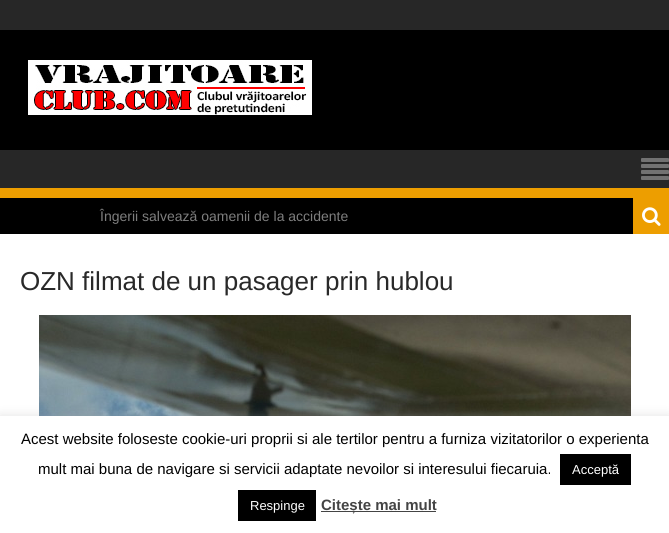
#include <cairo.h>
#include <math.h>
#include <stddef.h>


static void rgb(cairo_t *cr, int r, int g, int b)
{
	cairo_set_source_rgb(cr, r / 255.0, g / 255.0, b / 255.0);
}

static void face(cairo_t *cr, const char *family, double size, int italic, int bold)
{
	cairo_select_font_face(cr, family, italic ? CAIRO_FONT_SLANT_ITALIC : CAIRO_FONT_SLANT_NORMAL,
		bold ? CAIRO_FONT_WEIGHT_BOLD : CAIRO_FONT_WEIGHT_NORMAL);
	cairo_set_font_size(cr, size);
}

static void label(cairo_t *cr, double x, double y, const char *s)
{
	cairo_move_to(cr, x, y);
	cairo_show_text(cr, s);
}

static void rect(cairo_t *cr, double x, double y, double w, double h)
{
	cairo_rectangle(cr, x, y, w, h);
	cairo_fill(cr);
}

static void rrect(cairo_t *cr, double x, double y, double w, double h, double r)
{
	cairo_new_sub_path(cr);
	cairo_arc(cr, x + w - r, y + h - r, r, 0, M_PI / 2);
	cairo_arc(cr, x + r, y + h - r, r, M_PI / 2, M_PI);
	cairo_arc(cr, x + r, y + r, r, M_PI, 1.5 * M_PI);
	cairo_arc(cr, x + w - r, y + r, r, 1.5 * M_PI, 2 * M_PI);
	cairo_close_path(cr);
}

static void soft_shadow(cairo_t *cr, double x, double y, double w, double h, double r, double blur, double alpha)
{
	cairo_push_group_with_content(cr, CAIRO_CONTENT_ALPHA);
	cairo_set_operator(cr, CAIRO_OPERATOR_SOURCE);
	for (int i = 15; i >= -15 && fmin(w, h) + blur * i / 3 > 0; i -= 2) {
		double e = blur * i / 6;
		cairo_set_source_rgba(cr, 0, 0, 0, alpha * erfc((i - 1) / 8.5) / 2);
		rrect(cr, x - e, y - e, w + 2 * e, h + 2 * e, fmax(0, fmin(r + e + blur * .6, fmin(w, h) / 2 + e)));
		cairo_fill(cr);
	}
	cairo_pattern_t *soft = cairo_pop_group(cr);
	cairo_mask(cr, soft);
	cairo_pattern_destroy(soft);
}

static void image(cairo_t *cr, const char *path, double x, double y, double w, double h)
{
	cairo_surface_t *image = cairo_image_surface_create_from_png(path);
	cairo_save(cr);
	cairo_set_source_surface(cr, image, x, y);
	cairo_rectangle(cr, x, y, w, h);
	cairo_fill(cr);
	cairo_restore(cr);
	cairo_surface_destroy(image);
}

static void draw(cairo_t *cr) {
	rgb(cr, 255, 255, 255);
	cairo_paint(cr);
	rgb(cr, 39, 39, 39);
	rect(cr, 0, 0, 669, 30);
	rgb(cr, 0, 0, 0);
	rect(cr, 0, 30, 669, 120);
	image(cr, "image0.png", 28, 60, 284, 55);
	rgb(cr, 39, 39, 39);
	rect(cr, 0, 150, 669, 38);
	image(cr, "image1.png", 641, 158, 28, 22);
	rgb(cr, 0, 0, 0);
	rect(cr, 0, 198, 633, 36);
	rgb(cr, 237, 158, 0);
	rect(cr, 0, 188, 669, 10);
	face(cr, "Liberation Sans", 14, 0, 0);
	rgb(cr, 126, 126, 126);
	label(cr, 100, 221, "Îngerii salvează oamenii de la accidente");
	rgb(cr, 237, 158, 0);
	rect(cr, 633, 198, 36, 36);
	image(cr, "image2.png", 642, 207, 19, 19);
	face(cr, "Arimo", 26, 0, 0);
	rgb(cr, 41, 41, 41);
	label(cr, 20, 290, "OZN filmat de un pasager prin hublou");
	image(cr, "image3.png", 39, 315, 592, 101);
	rgb(cr, 172, 171, 171);
	soft_shadow(cr, 0, 415, 669, 117, 0, 5, 0.3);
	rgb(cr, 255, 255, 255);
	rect(cr, 0, 416, 669, 117);
	face(cr, "Liberation Sans", 15, 0, 0);
	rgb(cr, 0, 0, 0);
	label(cr, 21, 444, "Acest website foloseste cookie-uri proprii si ale tertilor pentru a furniza vizitatorilor o experienta");
	label(cr, 38, 474, "mult mai buna de navigare si servicii adaptate nevoilor si interesului fiecaruia.");
	rect(cr, 560, 454, 71, 31);
	face(cr, "Liberation Sans", 13, 0, 0);
	rgb(cr, 255, 255, 255);
	label(cr, 572, 474, "Acceptă");
	rgb(cr, 0, 0, 0);
	rect(cr, 238, 490, 78, 31);
	rgb(cr, 255, 255, 255);
	label(cr, 250, 510, "Respinge");
	rgb(cr, 68, 68, 68);
	rect(cr, 321, 511, 115, 1);
	face(cr, "Liberation Sans", 15, 0, 1);
	label(cr, 321, 510, "Citește mai mult");
}

int main(void) {
	cairo_surface_t *surface = cairo_image_surface_create(CAIRO_FORMAT_RGB24, 669, 533);
	cairo_t *cr = cairo_create(surface);
	cairo_font_options_t *options = cairo_font_options_create();
	cairo_font_options_set_hint_metrics(options, CAIRO_HINT_METRICS_OFF);
	cairo_font_options_set_hint_style(options, CAIRO_HINT_STYLE_NONE);
	cairo_set_font_options(cr, options);
	cairo_set_miter_limit(cr, 4);
	draw(cr);
	cairo_surface_write_to_png(surface, "render.png");
	cairo_font_options_destroy(options);
	cairo_destroy(cr);
	cairo_surface_destroy(surface);
	return 0;
}
